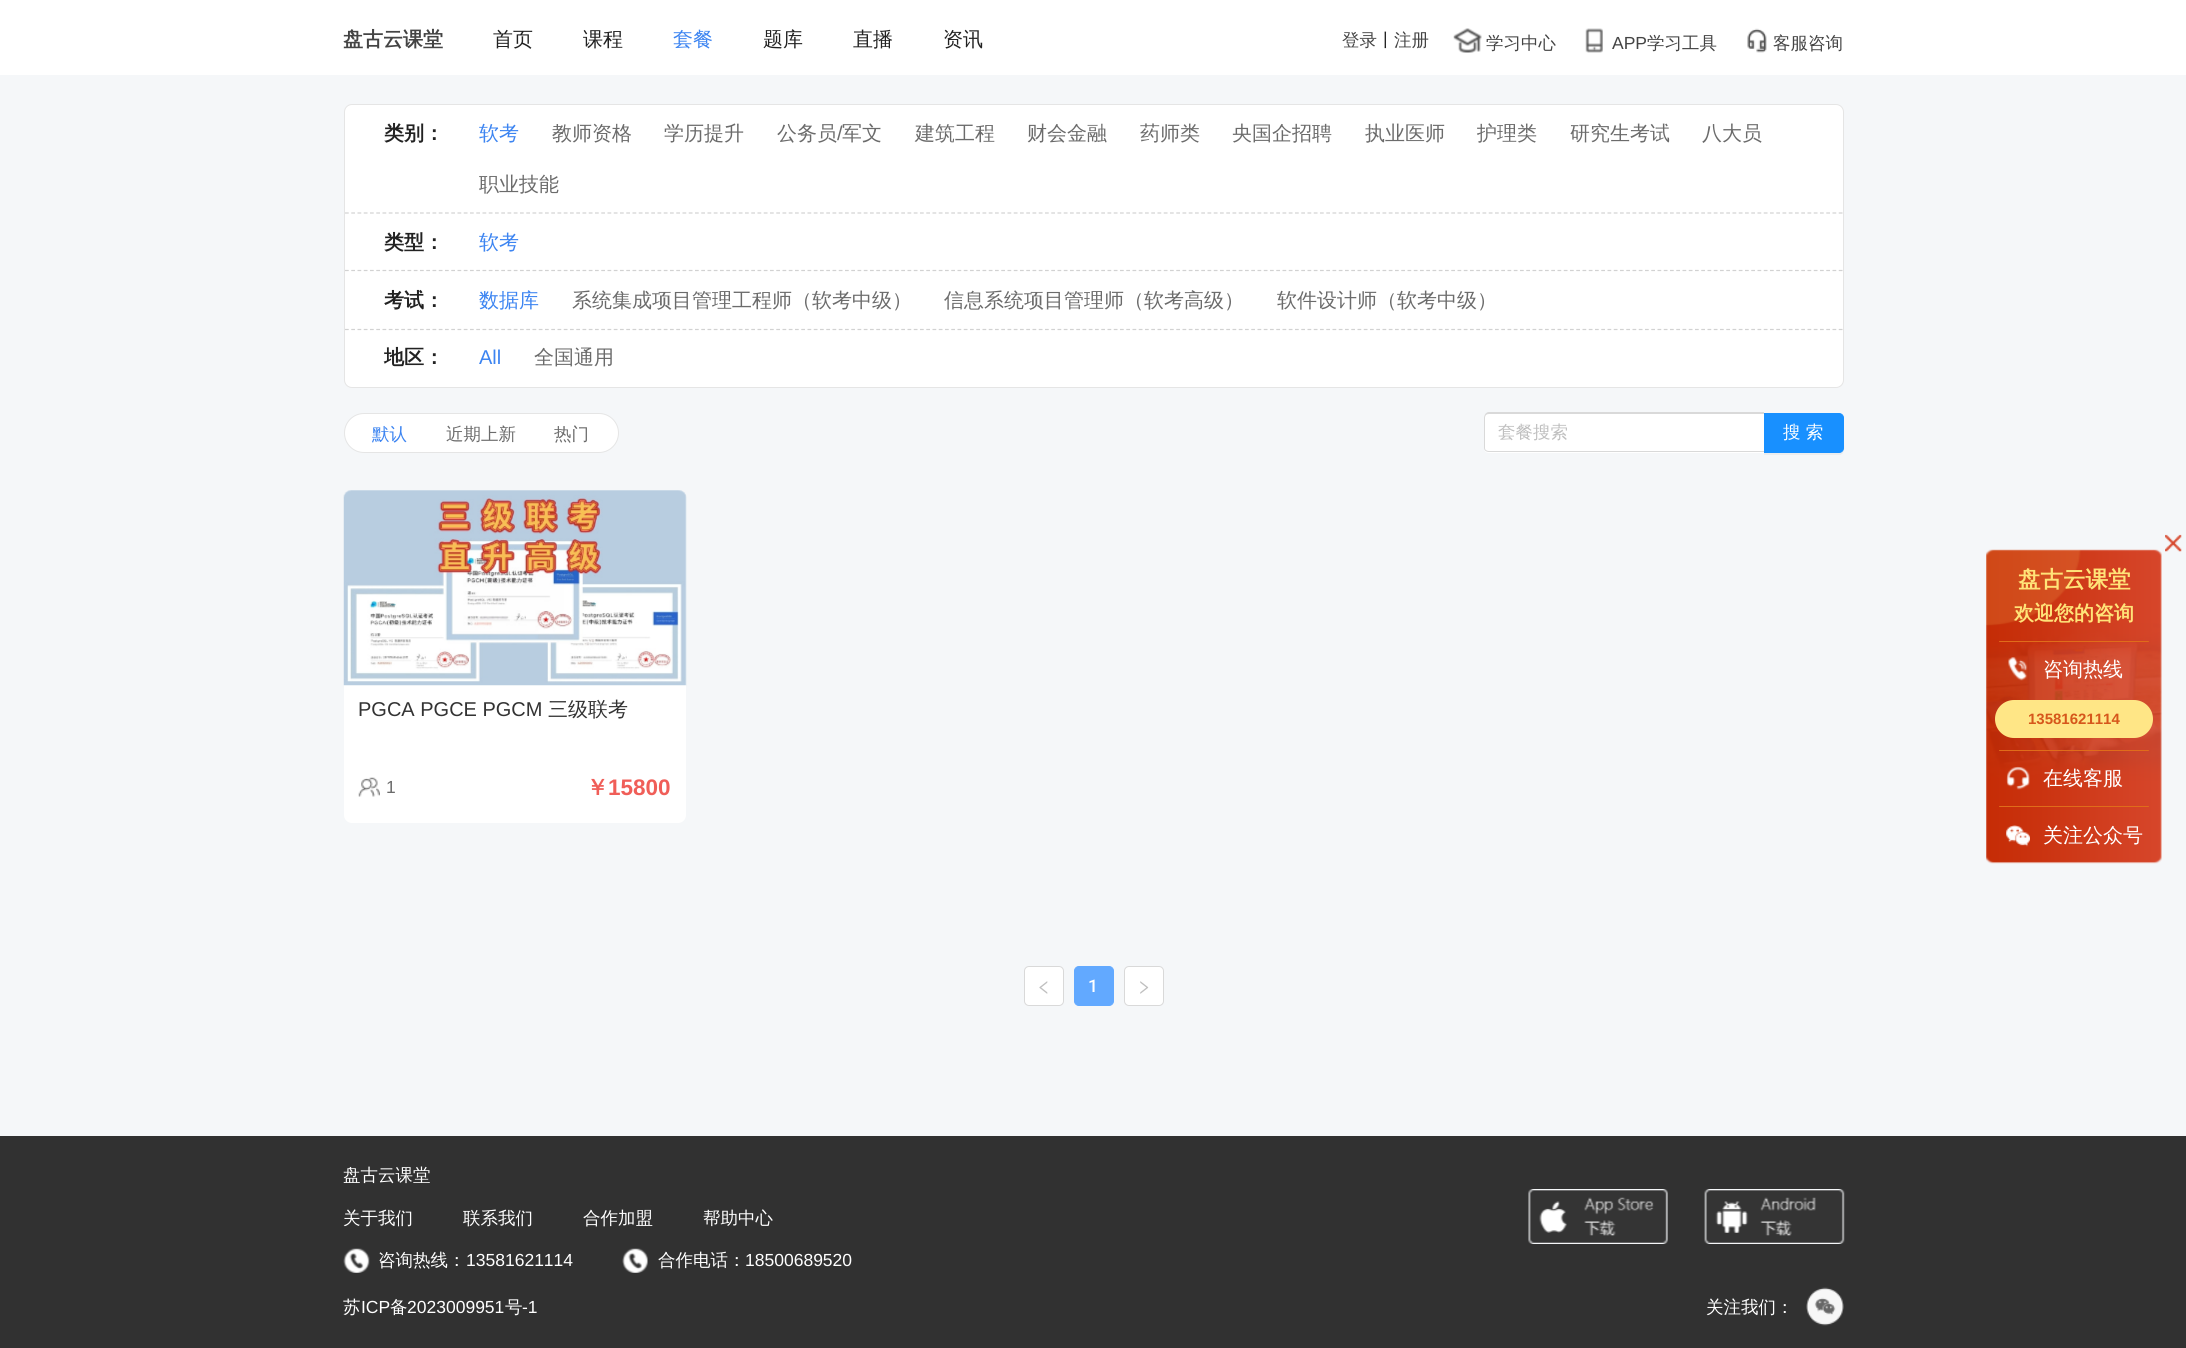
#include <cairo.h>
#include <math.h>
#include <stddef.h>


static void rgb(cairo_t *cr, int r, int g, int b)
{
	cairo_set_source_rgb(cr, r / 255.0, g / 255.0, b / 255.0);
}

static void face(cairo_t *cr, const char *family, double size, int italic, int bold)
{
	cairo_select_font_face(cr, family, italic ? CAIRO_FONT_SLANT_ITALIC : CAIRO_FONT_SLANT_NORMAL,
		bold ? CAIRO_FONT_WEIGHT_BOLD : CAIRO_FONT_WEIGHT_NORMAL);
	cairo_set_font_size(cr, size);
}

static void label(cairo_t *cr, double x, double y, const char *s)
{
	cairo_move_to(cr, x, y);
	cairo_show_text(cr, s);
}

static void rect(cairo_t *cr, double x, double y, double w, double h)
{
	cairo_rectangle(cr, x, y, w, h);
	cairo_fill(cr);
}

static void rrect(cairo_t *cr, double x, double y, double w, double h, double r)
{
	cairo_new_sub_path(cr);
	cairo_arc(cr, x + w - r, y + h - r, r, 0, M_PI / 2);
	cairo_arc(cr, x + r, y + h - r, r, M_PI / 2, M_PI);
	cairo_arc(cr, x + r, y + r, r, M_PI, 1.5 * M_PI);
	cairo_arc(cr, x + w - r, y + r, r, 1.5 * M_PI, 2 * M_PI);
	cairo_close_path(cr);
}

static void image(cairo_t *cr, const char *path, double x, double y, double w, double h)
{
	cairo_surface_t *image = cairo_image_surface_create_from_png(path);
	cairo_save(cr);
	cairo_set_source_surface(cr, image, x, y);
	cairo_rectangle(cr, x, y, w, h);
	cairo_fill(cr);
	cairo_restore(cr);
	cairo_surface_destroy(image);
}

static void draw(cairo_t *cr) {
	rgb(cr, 245, 247, 249);
	cairo_paint(cr);
	rgb(cr, 255, 255, 255);
	rect(cr, 0, 0, 2186, 75);
	face(cr, "WenQuanYi Zen Hei", 20, 0, 1);
	rgb(cr, 68, 68, 68);
	label(cr, 343, 46, "盘古云课堂");
	face(cr, "WenQuanYi Zen Hei Medium", 20, 0, 0);
	rgb(cr, 34, 34, 34);
	label(cr, 493, 46, "首页");
	label(cr, 583, 46, "课程");
	rgb(cr, 60, 132, 241);
	label(cr, 673, 46, "套餐");
	rgb(cr, 34, 34, 34);
	label(cr, 763, 46, "题库");
	label(cr, 853, 46, "直播");
	label(cr, 943, 46, "资讯");
	face(cr, "WenQuanYi Zen Hei Medium", 17.5, 0, 0);
	rgb(cr, 68, 68, 68);
	label(cr, 1342, 46, "登录");
	rgb(cr, 34, 34, 34);
	label(cr, 1377, 46, "丨");
	rgb(cr, 68, 68, 68);
	label(cr, 1394, 46, "注册");
	image(cr, "image0.png", 1453, 28, 29, 25);
	label(cr, 1486, 49, "学习中心");
	image(cr, "image1.png", 1585, 28, 18, 25);
	face(cr, "Liberation Sans", 17.5, 0, 0);
	label(cr, 1612, 49, "APP");
	face(cr, "WenQuanYi Zen Hei Medium", 17.5, 0, 0);
	label(cr, 1647, 49, "学习工具");
	image(cr, "image2.png", 1747, 28, 20, 25);
	label(cr, 1773, 49, "客服咨询");
	rgb(cr, 255, 255, 255);
	rrect(cr, 344.5, 104.5, 1499, 283, 7.5);
	cairo_fill_preserve(cr);
	rgb(cr, 229, 229, 229);
	cairo_set_line_width(cr, 1);
	cairo_stroke(cr);
	cairo_new_path(cr);
	cairo_move_to(cr, 345, 213);
	cairo_line_to(cr, 1842.5, 213);
	rgb(cr, 210, 210, 210);
	cairo_set_line_width(cr, 1.2);
	cairo_set_dash(cr, (double[]){3.75, 2.5}, 2, 0);
	cairo_stroke(cr);
	face(cr, "WenQuanYi Zen Hei", 20, 0, 1);
	rgb(cr, 34, 34, 34);
	label(cr, 384, 140, "类别：");
	face(cr, "WenQuanYi Zen Hei Medium", 20, 0, 0);
	rgb(cr, 60, 132, 241);
	label(cr, 479, 140, "软考");
	rgb(cr, 107, 107, 107);
	label(cr, 552, 140, "教师资格");
	label(cr, 664, 140, "学历提升");
	label(cr, 777, 140, "公务员");
	face(cr, "Liberation Sans", 20, 0, 0);
	label(cr, 837, 140, "/");
	face(cr, "WenQuanYi Zen Hei Medium", 20, 0, 0);
	label(cr, 842, 140, "军文");
	label(cr, 915, 140, "建筑工程");
	label(cr, 1027, 140, "财会金融");
	label(cr, 1140, 140, "药师类");
	label(cr, 1232, 140, "央国企招聘");
	label(cr, 1365, 140, "执业医师");
	label(cr, 1477, 140, "护理类");
	label(cr, 1570, 140, "研究生考试");
	label(cr, 1702, 140, "八大员");
	label(cr, 479, 191, "职业技能");
	cairo_new_path(cr);
	cairo_move_to(cr, 345, 270.5);
	cairo_line_to(cr, 1842.5, 270.5);
	rgb(cr, 210, 210, 210);
	cairo_stroke(cr);
	face(cr, "WenQuanYi Zen Hei", 20, 0, 1);
	rgb(cr, 34, 34, 34);
	label(cr, 384, 249, "类型：");
	face(cr, "WenQuanYi Zen Hei Medium", 20, 0, 0);
	rgb(cr, 60, 132, 241);
	label(cr, 479, 249, "软考");
	cairo_new_path(cr);
	cairo_move_to(cr, 345, 329.5);
	cairo_line_to(cr, 1842.5, 329.5);
	rgb(cr, 210, 210, 210);
	cairo_stroke(cr);
	face(cr, "WenQuanYi Zen Hei", 20, 0, 1);
	rgb(cr, 34, 34, 34);
	label(cr, 384, 307, "考试：");
	face(cr, "WenQuanYi Zen Hei Medium", 20, 0, 0);
	rgb(cr, 60, 132, 241);
	label(cr, 479, 307, "数据库");
	rgb(cr, 107, 107, 107);
	label(cr, 572, 307, "系统集成项目管理工程师（软考中级）");
	label(cr, 944, 307, "信息系统项目管理师（软考高级）");
	label(cr, 1277, 307, "软件设计师（软考中级）");
	face(cr, "WenQuanYi Zen Hei", 20, 0, 1);
	rgb(cr, 34, 34, 34);
	label(cr, 384, 364, "地区：");
	face(cr, "Liberation Sans", 20, 0, 0);
	rgb(cr, 60, 132, 241);
	label(cr, 479, 364, "All");
	face(cr, "WenQuanYi Zen Hei Medium", 20, 0, 0);
	rgb(cr, 107, 107, 107);
	label(cr, 534, 364, "全国通用");
	rgb(cr, 255, 255, 255);
	rrect(cr, 344.5, 413.5, 274, 39, 19.5);
	cairo_fill_preserve(cr);
	rgb(cr, 229, 229, 229);
	cairo_set_line_width(cr, 1);
	cairo_set_dash(cr, NULL, 0, 0);
	cairo_stroke(cr);
	face(cr, "WenQuanYi Zen Hei Medium", 17.5, 0, 0);
	rgb(cr, 60, 132, 241);
	label(cr, 372, 440, "默认");
	rgb(cr, 107, 107, 107);
	label(cr, 446, 440, "近期上新");
	label(cr, 554, 440, "热门");
	rgb(cr, 255, 255, 255);
	cairo_new_path(cr);
	cairo_move_to(cr, 1489, 413);
	cairo_line_to(cr, 1764, 413);
	cairo_line_to(cr, 1764, 453);
	cairo_line_to(cr, 1489, 453);
	cairo_curve_to(cr, 1486, 453, 1484, 451, 1484, 448);
	cairo_line_to(cr, 1484, 418);
	cairo_curve_to(cr, 1484, 415, 1486, 413, 1489, 413);
	cairo_close_path(cr);
	cairo_fill(cr);
	rgb(cr, 217, 217, 217);
	cairo_set_fill_rule(cr, CAIRO_FILL_RULE_EVEN_ODD);
	cairo_new_path(cr);
	cairo_move_to(cr, 1489, 412);
	cairo_line_to(cr, 1764, 412);
	cairo_line_to(cr, 1764, 452);
	cairo_line_to(cr, 1489, 452);
	cairo_curve_to(cr, 1486, 452, 1484, 450, 1484, 448);
	cairo_line_to(cr, 1484, 418);
	cairo_curve_to(cr, 1484, 415, 1486, 412, 1489, 412);
	cairo_close_path(cr);
	cairo_move_to(cr, 1489, 414);
	cairo_line_to(cr, 1764, 414);
	cairo_line_to(cr, 1764, 451);
	cairo_line_to(cr, 1489, 451);
	cairo_curve_to(cr, 1487, 451, 1485, 450, 1485, 448);
	cairo_line_to(cr, 1485, 418);
	cairo_curve_to(cr, 1485, 415, 1487, 414, 1489, 414);
	cairo_close_path(cr);
	cairo_fill(cr);
	rgb(cr, 191, 191, 191);
	label(cr, 1498, 438, "套餐搜索");
	cairo_set_source_rgba(cr, 0, 0, 0, 0.04);
	cairo_set_fill_rule(cr, CAIRO_FILL_RULE_WINDING);
	cairo_new_path(cr);
	cairo_move_to(cr, 1764, 452);
	cairo_line_to(cr, 1764, 455);
	cairo_line_to(cr, 1839, 455);
	cairo_curve_to(cr, 1846, 455, 1844, 444, 1844, 440);
	cairo_line_to(cr, 1844, 418);
	cairo_line_to(cr, 1844, 448);
	cairo_curve_to(cr, 1844, 450, 1842, 452, 1839, 452);
	cairo_close_path(cr);
	cairo_fill(cr);
	rgb(cr, 24, 144, 255);
	cairo_new_path(cr);
	cairo_move_to(cr, 1764.5, 413.5);
	cairo_line_to(cr, 1839, 413.5);
	cairo_curve_to(cr, 1841.5, 413.5, 1843.5, 415.5, 1843.5, 418);
	cairo_line_to(cr, 1843.5, 448);
	cairo_curve_to(cr, 1843.5, 450.5, 1841.5, 452.5, 1839, 452.5);
	cairo_line_to(cr, 1764.5, 452.5);
	cairo_close_path(cr);
	cairo_fill_preserve(cr);
	cairo_stroke(cr);
	rgb(cr, 255, 255, 255);
	label(cr, 1783, 438, "搜 索");
	rrect(cr, 344, 490, 342, 333, 8);
	cairo_fill(cr);
	image(cr, "image3.png", 343, 490, 344, 196);
	face(cr, "Liberation Sans", 20, 0, 0);
	rgb(cr, 51, 51, 51);
	label(cr, 358, 716, "PGCA PGCE PGCM");
	face(cr, "WenQuanYi Zen Hei Medium", 20, 0, 0);
	label(cr, 548, 716, "三级联考");
	image(cr, "image4.png", 358, 777, 22, 20);
	face(cr, "Liberation Sans", 17.5, 0, 0);
	rgb(cr, 107, 107, 107);
	label(cr, 386, 793, "1");
	face(cr, "WenQuanYi Zen Hei", 22.5, 0, 1);
	rgb(cr, 240, 94, 88);
	label(cr, 586, 795, "￥");
	face(cr, "Liberation Sans", 22.5, 0, 1);
	label(cr, 608, 795, "15800");
	rgb(cr, 255, 255, 255);
	rrect(cr, 1024.5, 966.5, 39, 39, 4.5);
	cairo_fill_preserve(cr);
	rgb(cr, 217, 217, 217);
	cairo_stroke(cr);
	image(cr, "image5.png", 1039, 981, 9, 13);
	rgb(cr, 98, 169, 255);
	rrect(cr, 1074.5, 966.5, 39, 39, 4.5);
	cairo_fill_preserve(cr);
	cairo_stroke(cr);
	face(cr, "Roboto Medium", 17.5, 0, 0);
	rgb(cr, 255, 255, 255);
	label(cr, 1088, 992, "1");
	rrect(cr, 1124.5, 966.5, 39, 39, 4.5);
	cairo_fill_preserve(cr);
	rgb(cr, 217, 217, 217);
	cairo_stroke(cr);
	image(cr, "image6.png", 1140, 981, 9, 13);
	image(cr, "image7.png", 1986, 549, 176, 315);
	image(cr, "image8.png", 2165, 534, 17, 18);
	face(cr, "WenQuanYi Zen Hei", 22.5, 0, 1);
	rgb(cr, 255, 227, 120);
	label(cr, 2018, 587, "盘古云课堂");
	face(cr, "WenQuanYi Zen Hei", 20, 0, 1);
	label(cr, 2014, 620, "欢迎您的咨询");
	rgb(cr, 224, 108, 26);
	rrect(cr, 1999, 641, 150, 1, 0.5);
	cairo_fill(cr);
	image(cr, "image9.png", 2008, 657, 20, 24);
	face(cr, "WenQuanYi Zen Hei Medium", 20, 0, 0);
	rgb(cr, 255, 255, 255);
	label(cr, 2043, 676, "咨询热线");
	rgb(cr, 255, 230, 134);
	rrect(cr, 1995, 700, 158, 38, 19);
	cairo_fill(cr);
	face(cr, "Liberation Sans", 15, 0, 1);
	rgb(cr, 214, 87, 27);
	label(cr, 2028, 724, "13581621114");
	rgb(cr, 224, 108, 26);
	rrect(cr, 1999, 750, 150, 1, 0.5);
	cairo_fill(cr);
	image(cr, "image10.png", 2006, 766, 24, 24);
	face(cr, "WenQuanYi Zen Hei Medium", 20, 0, 0);
	rgb(cr, 255, 255, 255);
	label(cr, 2043, 785, "在线客服");
	rgb(cr, 224, 108, 26);
	rrect(cr, 1999, 806, 150, 1, 0.5);
	cairo_fill(cr);
	image(cr, "image11.png", 2006, 825, 24, 22);
	rgb(cr, 255, 255, 255);
	label(cr, 2043, 842, "关注公众号");
	rgb(cr, 49, 49, 49);
	rect(cr, 0, 1136, 2186, 212);
	face(cr, "WenQuanYi Zen Hei Medium", 17.5, 0, 0);
	rgb(cr, 255, 255, 255);
	label(cr, 343, 1181, "盘古云课堂");
	label(cr, 343, 1224, "关于我们");
	label(cr, 463, 1224, "联系我们");
	label(cr, 583, 1224, "合作加盟");
	label(cr, 703, 1224, "帮助中心");
	image(cr, "image12.png", 343, 1248, 27, 25);
	label(cr, 378, 1266, "咨询热线：");
	face(cr, "Liberation Sans", 17.5, 0, 0);
	label(cr, 466, 1266, "13581621114");
	image(cr, "image13.png", 622, 1248, 26, 25);
	face(cr, "WenQuanYi Zen Hei Medium", 17.5, 0, 0);
	label(cr, 658, 1266, "合作电话：");
	face(cr, "Liberation Sans", 17.5, 0, 0);
	label(cr, 745, 1266, "18500689520");
	face(cr, "WenQuanYi Zen Hei Medium", 17.5, 0, 0);
	label(cr, 343, 1313, "苏");
	face(cr, "Liberation Sans", 17.5, 0, 0);
	label(cr, 361, 1313, "ICP");
	face(cr, "WenQuanYi Zen Hei Medium", 17.5, 0, 0);
	label(cr, 390, 1313, "备");
	face(cr, "Liberation Sans", 17.5, 0, 0);
	label(cr, 407, 1313, "2023009951");
	face(cr, "WenQuanYi Zen Hei Medium", 17.5, 0, 0);
	label(cr, 505, 1313, "号");
	face(cr, "Liberation Sans", 17.5, 0, 0);
	label(cr, 522, 1313, "-1");
	image(cr, "image14.png", 1528, 1189, 140, 55);
	image(cr, "image15.png", 1704, 1189, 141, 55);
	face(cr, "WenQuanYi Zen Hei Medium", 17.5, 0, 0);
	label(cr, 1706, 1313, "关注我们：");
	image(cr, "image16.png", 1806, 1287, 38, 39);
}

int main(void) {
	cairo_surface_t *surface = cairo_image_surface_create(CAIRO_FORMAT_RGB24, 2186, 1348);
	cairo_t *cr = cairo_create(surface);
	cairo_font_options_t *options = cairo_font_options_create();
	cairo_font_options_set_hint_metrics(options, CAIRO_HINT_METRICS_OFF);
	cairo_font_options_set_hint_style(options, CAIRO_HINT_STYLE_NONE);
	cairo_set_font_options(cr, options);
	cairo_set_miter_limit(cr, 4);
	draw(cr);
	cairo_surface_write_to_png(surface, "render.png");
	cairo_font_options_destroy(options);
	cairo_destroy(cr);
	cairo_surface_destroy(surface);
	return 0;
}
